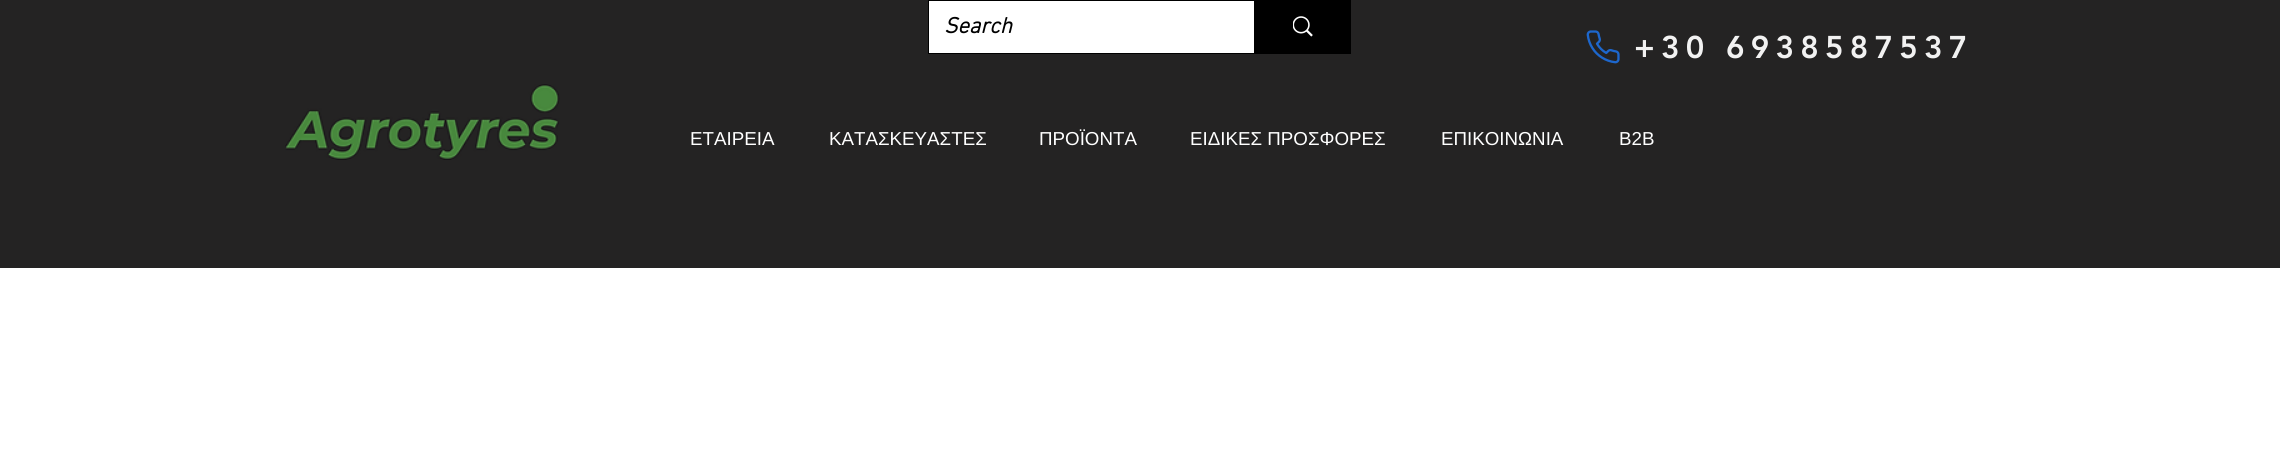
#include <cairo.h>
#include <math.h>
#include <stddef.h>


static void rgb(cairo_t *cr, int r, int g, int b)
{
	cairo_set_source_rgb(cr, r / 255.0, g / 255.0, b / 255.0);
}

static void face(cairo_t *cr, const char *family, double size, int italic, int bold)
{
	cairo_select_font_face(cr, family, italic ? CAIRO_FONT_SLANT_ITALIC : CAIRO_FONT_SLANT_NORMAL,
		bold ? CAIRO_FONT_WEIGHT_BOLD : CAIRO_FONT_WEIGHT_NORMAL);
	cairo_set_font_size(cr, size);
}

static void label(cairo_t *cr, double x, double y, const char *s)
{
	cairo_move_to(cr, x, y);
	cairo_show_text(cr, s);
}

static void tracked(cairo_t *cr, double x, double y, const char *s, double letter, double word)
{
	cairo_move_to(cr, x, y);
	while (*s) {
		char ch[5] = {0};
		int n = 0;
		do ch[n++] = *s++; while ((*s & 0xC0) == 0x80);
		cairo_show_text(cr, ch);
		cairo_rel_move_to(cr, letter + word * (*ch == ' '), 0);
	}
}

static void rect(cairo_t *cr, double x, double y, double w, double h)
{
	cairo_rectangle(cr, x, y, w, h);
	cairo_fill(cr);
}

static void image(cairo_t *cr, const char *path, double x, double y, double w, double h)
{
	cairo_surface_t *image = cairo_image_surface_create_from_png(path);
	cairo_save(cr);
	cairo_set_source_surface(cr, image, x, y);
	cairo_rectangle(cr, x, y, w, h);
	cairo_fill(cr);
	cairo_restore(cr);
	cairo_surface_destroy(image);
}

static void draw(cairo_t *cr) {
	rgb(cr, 255, 255, 255);
	cairo_paint(cr);
	rgb(cr, 36, 35, 35);
	rect(cr, 0, 0, 2280, 268);
	cairo_rectangle(cr, 928.5, 0.5, 422, 53);
	rgb(cr, 0, 0, 0);
	cairo_set_line_width(cr, 1);
	cairo_stroke(cr);
	rgb(cr, 255, 255, 255);
	rect(cr, 929, 1, 325, 52);
	face(cr, "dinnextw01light", 22.5, 1, 1);
	rgb(cr, 0, 0, 0);
	label(cr, 944, 33, "Search");
	rect(cr, 1254, 1, 96, 52);
	image(cr, "image0.png", 1293, 16, 20, 21);
	image(cr, "image1.png", 1586, 30, 34, 34);
	face(cr, "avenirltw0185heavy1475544 Black", 31.25, 0, 0);
	rgb(cr, 242, 242, 242);
	tracked(cr, 1634, 58, "+30 6938587537", 6.25, 0);
	image(cr, "image2.png", 285, 84, 275, 76);
	face(cr, "Liberation Sans", 18.75, 0, 0);
	rgb(cr, 255, 255, 255);
	label(cr, 690, 145, "ΕΤΑΙΡΕΙΑ");
	label(cr, 829, 145, "ΚΑΤΑΣΚΕΥΑΣΤΕΣ");
	label(cr, 1039, 145, "ΠΡΟΪΟΝΤΑ");
	label(cr, 1190, 145, "ΕΙΔΙΚΕΣ ΠΡΟΣΦΟΡΕΣ");
	label(cr, 1441, 145, "ΕΠΙΚΟΙΝΩΝΙΑ");
	label(cr, 1619, 145, "Β2Β");
}

int main(void) {
	cairo_surface_t *surface = cairo_image_surface_create(CAIRO_FORMAT_RGB24, 2280, 456);
	cairo_t *cr = cairo_create(surface);
	cairo_font_options_t *options = cairo_font_options_create();
	cairo_font_options_set_hint_metrics(options, CAIRO_HINT_METRICS_OFF);
	cairo_font_options_set_hint_style(options, CAIRO_HINT_STYLE_NONE);
	cairo_set_font_options(cr, options);
	cairo_set_miter_limit(cr, 4);
	draw(cr);
	cairo_surface_write_to_png(surface, "render.png");
	cairo_font_options_destroy(options);
	cairo_destroy(cr);
	cairo_surface_destroy(surface);
	return 0;
}
